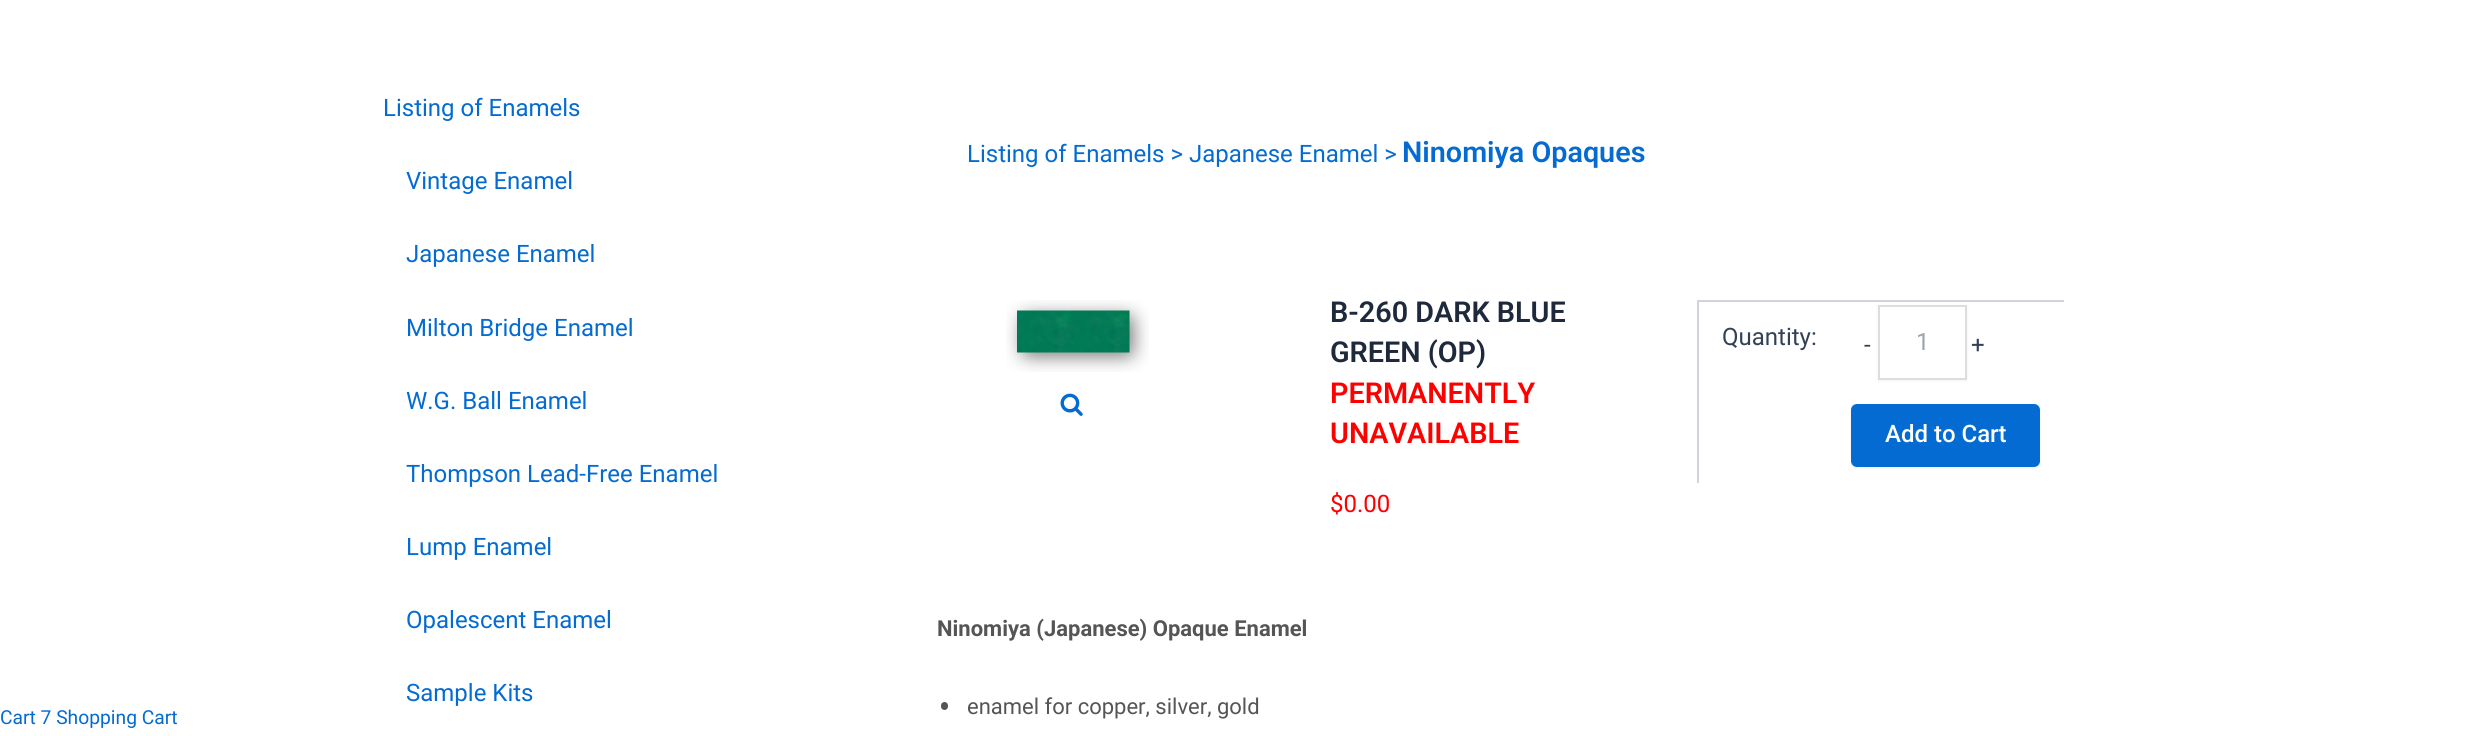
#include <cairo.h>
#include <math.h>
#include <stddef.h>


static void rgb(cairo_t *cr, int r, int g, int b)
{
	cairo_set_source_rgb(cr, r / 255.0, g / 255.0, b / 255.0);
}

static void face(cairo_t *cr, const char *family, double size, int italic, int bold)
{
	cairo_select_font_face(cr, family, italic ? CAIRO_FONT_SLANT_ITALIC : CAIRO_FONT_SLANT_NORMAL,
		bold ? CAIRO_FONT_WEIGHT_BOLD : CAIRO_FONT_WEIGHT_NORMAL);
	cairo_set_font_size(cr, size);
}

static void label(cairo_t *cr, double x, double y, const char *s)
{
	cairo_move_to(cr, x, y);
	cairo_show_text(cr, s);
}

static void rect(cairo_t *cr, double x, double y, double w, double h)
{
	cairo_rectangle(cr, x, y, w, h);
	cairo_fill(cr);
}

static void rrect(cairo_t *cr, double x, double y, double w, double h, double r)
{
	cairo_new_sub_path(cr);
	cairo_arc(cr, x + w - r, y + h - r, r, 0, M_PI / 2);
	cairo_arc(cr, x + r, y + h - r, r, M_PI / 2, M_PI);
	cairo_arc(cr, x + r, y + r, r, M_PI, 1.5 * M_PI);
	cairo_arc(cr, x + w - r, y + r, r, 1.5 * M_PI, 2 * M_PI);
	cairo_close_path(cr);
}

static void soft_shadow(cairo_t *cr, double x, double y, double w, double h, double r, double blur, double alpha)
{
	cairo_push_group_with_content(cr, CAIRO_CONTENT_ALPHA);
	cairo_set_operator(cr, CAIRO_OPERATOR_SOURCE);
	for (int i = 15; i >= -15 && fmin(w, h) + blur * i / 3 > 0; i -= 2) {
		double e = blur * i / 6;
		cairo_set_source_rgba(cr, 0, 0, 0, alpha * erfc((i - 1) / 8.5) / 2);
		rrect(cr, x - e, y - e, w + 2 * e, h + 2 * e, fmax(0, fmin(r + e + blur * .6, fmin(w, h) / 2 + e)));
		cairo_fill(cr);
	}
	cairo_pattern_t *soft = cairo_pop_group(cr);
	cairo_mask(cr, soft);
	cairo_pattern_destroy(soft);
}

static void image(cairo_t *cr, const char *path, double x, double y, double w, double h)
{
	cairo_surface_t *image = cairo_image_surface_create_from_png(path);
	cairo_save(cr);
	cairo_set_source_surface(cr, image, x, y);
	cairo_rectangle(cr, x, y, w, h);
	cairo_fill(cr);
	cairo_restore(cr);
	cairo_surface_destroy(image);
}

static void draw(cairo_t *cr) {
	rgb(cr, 255, 255, 255);
	cairo_paint(cr);
	face(cr, "Roboto", 19.25, 0, 0);
	rgb(cr, 4, 107, 210);
	label(cr, 0, 724, "Cart 7 Shopping Cart");
	face(cr, "Roboto", 24, 0, 0);
	label(cr, 383, 116, "Listing of Enamels");
	label(cr, 406, 189, "Vintage Enamel");
	label(cr, 406, 262, "Japanese Enamel");
	label(cr, 406, 336, "Milton Bridge Enamel");
	label(cr, 406, 409, "W.G. Ball Enamel");
	label(cr, 406, 482, "Thompson Lead-Free Enamel");
	label(cr, 406, 555, "Lump Enamel");
	label(cr, 406, 628, "Opalescent Enamel");
	label(cr, 406, 701, "Sample Kits");
	label(cr, 967, 162, "Listing of Enamels > Japanese Enamel >");
	face(cr, "Roboto SemiBold", 28.75, 0, 0);
	label(cr, 1402, 162, "Ninomiya Opaques");
	image(cr, "image0.png", 1006, 300, 143, 72);
	image(cr, "image1.png", 1060, 393, 23, 23);
	rgb(cr, 30, 41, 59);
	label(cr, 1330, 322, "B-260 DARK BLUE");
	label(cr, 1330, 362, "GREEN (OP)");
	rgb(cr, 255, 0, 0);
	label(cr, 1330, 403, "PERMANENTLY");
	label(cr, 1330, 443, "UNAVAILABLE");
	face(cr, "Roboto", 24, 0, 0);
	label(cr, 1330, 512, "$0.00");
	rgb(cr, 209, 213, 219);
	rect(cr, 1697, 300, 367, 2);
	rect(cr, 1697, 300, 2, 183);
	rgb(cr, 51, 65, 85);
	label(cr, 1722, 345, "Quantity:");
	label(cr, 1864, 353, "-");
	rgb(cr, 0, 0, 0);
	soft_shadow(cr, 1878, 306, 89, 75, 0, 1.5, 0.05);
	rgb(cr, 255, 255, 255);
	cairo_rectangle(cr, 1879, 306, 87, 73);
	cairo_fill_preserve(cr);
	rgb(cr, 221, 221, 221);
	cairo_stroke(cr);
	rgb(cr, 156, 163, 175);
	label(cr, 1916, 350, "1");
	rgb(cr, 51, 65, 85);
	label(cr, 1971, 353, "+");
	rgb(cr, 0, 0, 0);
	soft_shadow(cr, 1851, 405, 189, 63, 6, 1.5, 0.05);
	rgb(cr, 4, 107, 210);
	rrect(cr, 1851, 404, 189, 63, 6);
	cairo_fill(cr);
	face(cr, "Roboto Medium", 24, 0, 0);
	rgb(cr, 255, 255, 255);
	label(cr, 1885, 442, "Add to Cart");
	face(cr, "Roboto", 22, 0, 1);
	rgb(cr, 85, 85, 85);
	label(cr, 937, 636, "Ninomiya (Japanese) Opaque Enamel");
	rrect(cr, 941, 702, 7, 8, 3.5);
	cairo_fill(cr);
	face(cr, "Roboto", 22, 0, 0);
	label(cr, 967, 714, "enamel for copper, silver, gold");
}

int main(void) {
	cairo_surface_t *surface = cairo_image_surface_create(CAIRO_FORMAT_RGB24, 2470, 736);
	cairo_t *cr = cairo_create(surface);
	cairo_font_options_t *options = cairo_font_options_create();
	cairo_font_options_set_hint_metrics(options, CAIRO_HINT_METRICS_OFF);
	cairo_font_options_set_hint_style(options, CAIRO_HINT_STYLE_NONE);
	cairo_set_font_options(cr, options);
	cairo_set_miter_limit(cr, 4);
	draw(cr);
	cairo_surface_write_to_png(surface, "render.png");
	cairo_font_options_destroy(options);
	cairo_destroy(cr);
	cairo_surface_destroy(surface);
	return 0;
}
